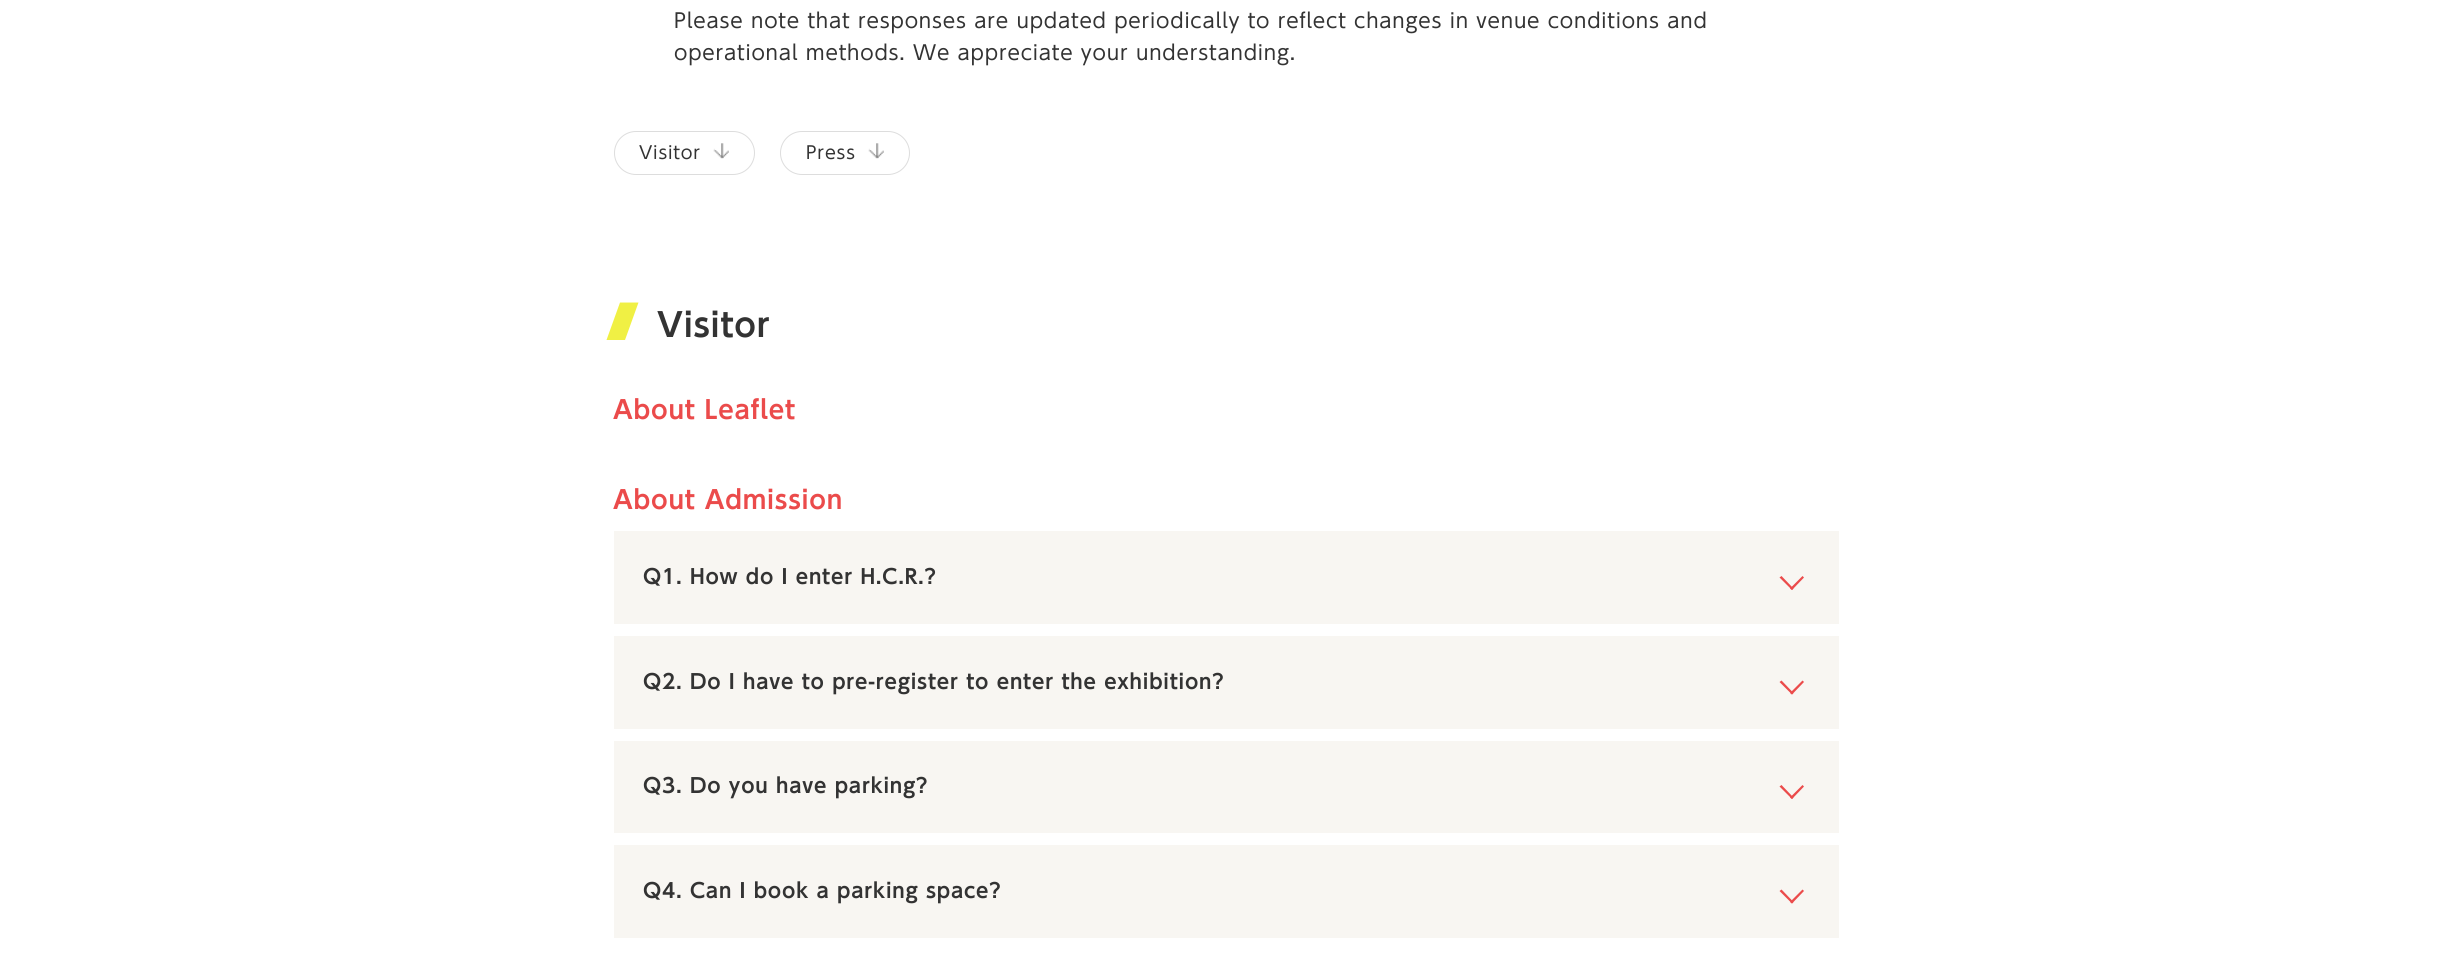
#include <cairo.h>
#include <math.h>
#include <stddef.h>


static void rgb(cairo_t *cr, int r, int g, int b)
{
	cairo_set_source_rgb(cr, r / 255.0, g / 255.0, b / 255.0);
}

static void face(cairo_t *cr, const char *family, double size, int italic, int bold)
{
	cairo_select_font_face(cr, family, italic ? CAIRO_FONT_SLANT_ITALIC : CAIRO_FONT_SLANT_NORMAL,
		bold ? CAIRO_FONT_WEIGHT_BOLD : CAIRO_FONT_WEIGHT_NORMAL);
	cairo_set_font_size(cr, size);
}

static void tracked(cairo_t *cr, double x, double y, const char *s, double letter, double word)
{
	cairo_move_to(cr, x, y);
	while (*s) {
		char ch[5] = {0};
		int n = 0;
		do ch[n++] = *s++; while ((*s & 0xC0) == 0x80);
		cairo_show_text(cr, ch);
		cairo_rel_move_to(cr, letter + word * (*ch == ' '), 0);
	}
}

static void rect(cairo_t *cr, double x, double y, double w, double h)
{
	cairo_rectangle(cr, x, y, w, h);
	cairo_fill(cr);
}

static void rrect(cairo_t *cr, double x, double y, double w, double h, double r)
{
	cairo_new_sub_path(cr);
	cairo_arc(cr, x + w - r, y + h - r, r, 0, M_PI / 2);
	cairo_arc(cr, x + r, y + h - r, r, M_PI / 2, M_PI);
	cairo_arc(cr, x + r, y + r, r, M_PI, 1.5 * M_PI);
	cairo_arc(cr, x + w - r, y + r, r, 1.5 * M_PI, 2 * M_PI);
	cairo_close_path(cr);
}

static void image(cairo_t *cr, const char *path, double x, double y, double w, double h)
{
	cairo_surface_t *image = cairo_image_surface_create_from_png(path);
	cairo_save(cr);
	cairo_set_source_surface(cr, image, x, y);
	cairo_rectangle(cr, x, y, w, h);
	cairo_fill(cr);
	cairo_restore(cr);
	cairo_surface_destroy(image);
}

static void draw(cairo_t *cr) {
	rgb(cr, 255, 255, 255);
	cairo_paint(cr);
	face(cr, "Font", 20, 0, 0);
	rgb(cr, 51, 51, 51);
	tracked(cr, 674, 28, "Please note that responses are updated periodically to reflect changes in venue conditions and", 0.8, 0);
	tracked(cr, 674, 60, "operational methods. We appreciate your understanding.", 0.8, 0);
	rrect(cr, 614.5, 131.5, 140, 43, 21.5);
	rgb(cr, 221, 221, 221);
	cairo_set_line_width(cr, 1);
	cairo_stroke(cr);
	face(cr, "Font", 17.5, 0, 0);
	rgb(cr, 51, 51, 51);
	tracked(cr, 639, 159, "Visitor", 0.8, 0);
	image(cr, "image0.png", 713, 143, 16, 16);
	rrect(cr, 780.5, 131.5, 129, 43, 21.5);
	rgb(cr, 221, 221, 221);
	cairo_stroke(cr);
	rgb(cr, 51, 51, 51);
	tracked(cr, 806, 159, "Press", 0.8, 0);
	image(cr, "image0.png", 868, 143, 16, 16);
	rgb(cr, 240, 240, 68);
	cairo_new_path(cr);
	cairo_move_to(cr, 620, 302.5);
	cairo_line_to(cr, 638.5, 302.5);
	cairo_line_to(cr, 625, 340);
	cairo_line_to(cr, 606.5, 340);
	cairo_close_path(cr);
	cairo_fill(cr);
	face(cr, "Font SemiBold", 32.5, 0, 0);
	rgb(cr, 51, 51, 51);
	tracked(cr, 657, 337, "Visitor", 0.8, 0);
	face(cr, "Font SemiBold", 25, 0, 0);
	rgb(cr, 235, 75, 75);
	tracked(cr, 613, 419, "About Leaflet", 0.8, 0);
	tracked(cr, 613, 509, "About Admission", 0.8, 0);
	rgb(cr, 248, 246, 242);
	rect(cr, 614, 531, 1225, 93);
	face(cr, "Font SemiBold", 20, 0, 0);
	rgb(cr, 51, 51, 51);
	tracked(cr, 643, 584, "Q1. How do I enter H.C.R.?", 0.8, 0);
	rgb(cr, 235, 75, 75);
	cairo_new_path(cr);
	cairo_move_to(cr, 1804, 577.5);
	cairo_line_to(cr, 1792, 590);
	cairo_line_to(cr, 1790, 588.5);
	cairo_line_to(cr, 1802.5, 576);
	cairo_close_path(cr);
	cairo_fill(cr);
	cairo_new_path(cr);
	cairo_move_to(cr, 1793.5, 588.5);
	cairo_line_to(cr, 1792, 590);
	cairo_line_to(cr, 1779.5, 577.5);
	cairo_line_to(cr, 1781.5, 576);
	cairo_close_path(cr);
	cairo_fill(cr);
	rgb(cr, 248, 246, 242);
	rect(cr, 614, 636, 1225, 93);
	rgb(cr, 51, 51, 51);
	tracked(cr, 643, 689, "Q2. Do I have to pre-register to enter the exhibition?", 0.8, 0);
	rgb(cr, 235, 75, 75);
	cairo_new_path(cr);
	cairo_move_to(cr, 1804, 682);
	cairo_line_to(cr, 1792, 694.5);
	cairo_line_to(cr, 1790, 693);
	cairo_line_to(cr, 1802.5, 680.5);
	cairo_close_path(cr);
	cairo_fill(cr);
	cairo_new_path(cr);
	cairo_move_to(cr, 1793.5, 693);
	cairo_line_to(cr, 1792, 694.5);
	cairo_line_to(cr, 1779.5, 682);
	cairo_line_to(cr, 1781.5, 680.5);
	cairo_close_path(cr);
	cairo_fill(cr);
	rgb(cr, 248, 246, 242);
	rect(cr, 614, 741, 1225, 92);
	rgb(cr, 51, 51, 51);
	tracked(cr, 643, 793, "Q3. Do you have parking?", 0.8, 0);
	rgb(cr, 235, 75, 75);
	cairo_new_path(cr);
	cairo_move_to(cr, 1804, 786.5);
	cairo_line_to(cr, 1792, 799);
	cairo_line_to(cr, 1790, 797.5);
	cairo_line_to(cr, 1802.5, 785);
	cairo_close_path(cr);
	cairo_fill(cr);
	cairo_new_path(cr);
	cairo_move_to(cr, 1793.5, 797.5);
	cairo_line_to(cr, 1792, 799);
	cairo_line_to(cr, 1779.5, 786.5);
	cairo_line_to(cr, 1781.5, 785);
	cairo_close_path(cr);
	cairo_fill(cr);
	rgb(cr, 248, 246, 242);
	rect(cr, 614, 845, 1225, 93);
	rgb(cr, 51, 51, 51);
	tracked(cr, 643, 898, "Q4. Can I book a parking space?", 0.8, 0);
	rgb(cr, 235, 75, 75);
	cairo_new_path(cr);
	cairo_move_to(cr, 1804, 891);
	cairo_line_to(cr, 1792, 903.5);
	cairo_line_to(cr, 1790, 902);
	cairo_line_to(cr, 1802.5, 889.5);
	cairo_close_path(cr);
	cairo_fill(cr);
	cairo_new_path(cr);
	cairo_move_to(cr, 1793.5, 902);
	cairo_line_to(cr, 1792, 903.5);
	cairo_line_to(cr, 1779.5, 891);
	cairo_line_to(cr, 1781.5, 889.5);
	cairo_close_path(cr);
	cairo_fill(cr);
}

int main(void) {
	cairo_surface_t *surface = cairo_image_surface_create(CAIRO_FORMAT_RGB24, 2451, 968);
	cairo_t *cr = cairo_create(surface);
	cairo_font_options_t *options = cairo_font_options_create();
	cairo_font_options_set_hint_metrics(options, CAIRO_HINT_METRICS_OFF);
	cairo_font_options_set_hint_style(options, CAIRO_HINT_STYLE_NONE);
	cairo_set_font_options(cr, options);
	cairo_set_miter_limit(cr, 4);
	draw(cr);
	cairo_surface_write_to_png(surface, "render.png");
	cairo_font_options_destroy(options);
	cairo_destroy(cr);
	cairo_surface_destroy(surface);
	return 0;
}
